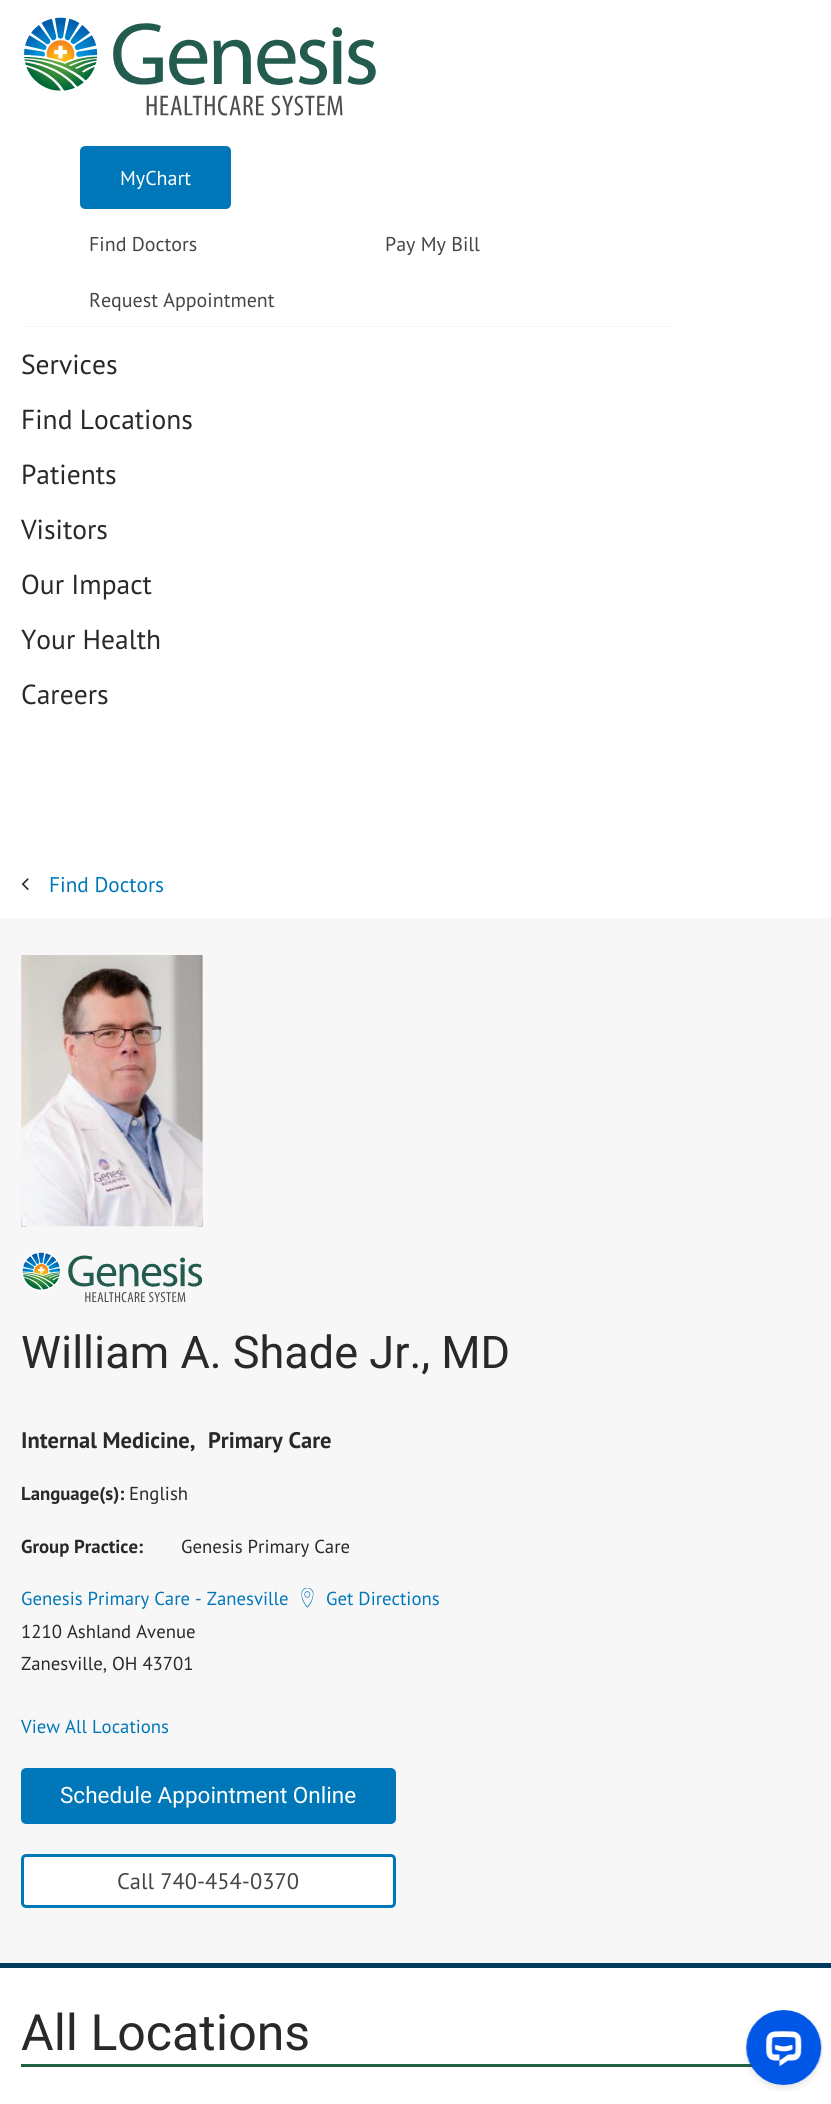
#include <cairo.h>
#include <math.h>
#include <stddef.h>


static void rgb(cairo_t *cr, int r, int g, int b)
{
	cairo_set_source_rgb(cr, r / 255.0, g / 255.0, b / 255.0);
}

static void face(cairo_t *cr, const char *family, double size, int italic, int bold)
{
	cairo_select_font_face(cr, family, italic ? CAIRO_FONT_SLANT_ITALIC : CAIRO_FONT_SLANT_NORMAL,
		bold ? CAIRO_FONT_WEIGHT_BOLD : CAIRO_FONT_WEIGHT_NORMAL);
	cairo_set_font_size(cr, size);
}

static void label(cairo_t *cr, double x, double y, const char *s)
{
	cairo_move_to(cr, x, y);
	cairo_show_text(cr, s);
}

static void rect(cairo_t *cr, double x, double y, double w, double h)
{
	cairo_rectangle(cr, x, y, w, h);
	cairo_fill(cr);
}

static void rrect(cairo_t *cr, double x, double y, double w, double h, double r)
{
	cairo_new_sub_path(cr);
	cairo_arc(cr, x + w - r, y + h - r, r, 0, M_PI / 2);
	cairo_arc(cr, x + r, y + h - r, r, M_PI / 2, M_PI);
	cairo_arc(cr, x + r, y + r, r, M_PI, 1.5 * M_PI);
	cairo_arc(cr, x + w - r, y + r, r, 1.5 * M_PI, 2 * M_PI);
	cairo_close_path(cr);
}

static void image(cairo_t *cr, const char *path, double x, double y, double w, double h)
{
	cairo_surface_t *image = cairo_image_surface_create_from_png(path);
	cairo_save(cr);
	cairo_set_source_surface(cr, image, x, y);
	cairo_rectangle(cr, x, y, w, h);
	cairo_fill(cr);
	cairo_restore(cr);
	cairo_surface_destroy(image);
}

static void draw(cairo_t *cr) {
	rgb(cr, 255, 255, 255);
	cairo_paint(cr);
	image(cr, "image0.png", 24, 17, 352, 99);
	rgb(cr, 0, 119, 184);
	rrect(cr, 81.5, 147.5, 148, 60, 3.5);
	cairo_fill_preserve(cr);
	cairo_set_line_width(cr, 3);
	cairo_stroke(cr);
	face(cr, "PT Sans", 20, 0, 0);
	rgb(cr, 255, 255, 255);
	label(cr, 120, 185, "MyChart");
	rgb(cr, 70, 70, 70);
	label(cr, 89, 251, "Find Doctors");
	label(cr, 385, 251, "Pay My Bill");
	label(cr, 89, 307, "Request Appointment");
	rgb(cr, 247, 247, 247);
	rect(cr, 21, 326, 652, 1);
	face(cr, "PT Sans", 27.5, 0, 0);
	rgb(cr, 41, 41, 41);
	label(cr, 21, 374, "Services");
	label(cr, 21, 429, "Find Locations");
	label(cr, 21, 484, "Patients");
	label(cr, 21, 539, "Visitors");
	label(cr, 21, 594, "Our Impact");
	label(cr, 21, 649, "Your Health");
	label(cr, 21, 704, "Careers");
	image(cr, "image1.png", 21, 878, 8, 12);
	face(cr, "PT Sans", 21.25, 0, 0);
	rgb(cr, 0, 119, 184);
	label(cr, 49, 892, "Find Doctors");
	rgb(cr, 247, 247, 247);
	rect(cr, 0, 918, 831, 1045);
	rgb(cr, 0, 58, 93);
	rect(cr, 0, 1963, 831, 5);
	image(cr, "image2.png", 21, 955, 182, 272);
	image(cr, "image3.png", 21, 955, 182, 272);
	image(cr, "image4.png", 21, 1251, 182, 52);
	face(cr, "Heebo", 45, 0, 0);
	rgb(cr, 41, 41, 41);
	label(cr, 21, 1368, "William A. Shade Jr., MD");
	face(cr, "PT Sans", 22.5, 0, 1);
	label(cr, 21, 1448, "Internal Medicine,");
	label(cr, 208, 1448, "Primary Care");
	face(cr, "PT Sans", 18.75, 0, 1);
	label(cr, 21, 1500, "Language(s):");
	face(cr, "PT Sans", 18.75, 0, 0);
	label(cr, 129, 1500, "English");
	face(cr, "PT Sans", 18.75, 0, 1);
	label(cr, 21, 1553, "Group Practice:");
	face(cr, "PT Sans", 18.75, 0, 0);
	label(cr, 181, 1553, "Genesis Primary Care");
	rgb(cr, 0, 119, 184);
	label(cr, 21, 1605, "Genesis Primary Care - Zanesville");
	rgb(cr, 41, 41, 41);
	label(cr, 21, 1638, "1210 Ashland Avenue");
	label(cr, 21, 1670, "Zanesville, OH 43701");
	image(cr, "image5.png", 301, 1588, 13, 20);
	rgb(cr, 0, 119, 184);
	label(cr, 326, 1605, "Get Directions");
	label(cr, 21, 1733, "View All Locations");
	rrect(cr, 22.5, 1769.5, 372, 53, 3.5);
	cairo_fill_preserve(cr);
	cairo_stroke(cr);
	face(cr, "Heebo", 22.5, 0, 0);
	rgb(cr, 255, 255, 255);
	label(cr, 60, 1803, "Schedule Appointment Online");
	rrect(cr, 22.5, 1855.5, 372, 51, 3.5);
	cairo_fill_preserve(cr);
	rgb(cr, 0, 119, 184);
	cairo_stroke(cr);
	face(cr, "PT Sans", 22.5, 0, 0);
	rgb(cr, 70, 70, 70);
	label(cr, 117, 1889, "Call 740-454-0370");
	rgb(cr, 36, 97, 65);
	rect(cr, 21, 2064, 732, 3);
	face(cr, "Heebo", 50, 0, 0);
	rgb(cr, 41, 41, 41);
	label(cr, 21, 2050, "All Locations");
	image(cr, "image6.png", 744, 2010, 79, 81);
}

int main(void) {
	cairo_surface_t *surface = cairo_image_surface_create(CAIRO_FORMAT_RGB24, 831, 2104);
	cairo_t *cr = cairo_create(surface);
	cairo_font_options_t *options = cairo_font_options_create();
	cairo_font_options_set_hint_metrics(options, CAIRO_HINT_METRICS_OFF);
	cairo_font_options_set_hint_style(options, CAIRO_HINT_STYLE_NONE);
	cairo_set_font_options(cr, options);
	cairo_set_miter_limit(cr, 4);
	draw(cr);
	cairo_surface_write_to_png(surface, "render.png");
	cairo_font_options_destroy(options);
	cairo_destroy(cr);
	cairo_surface_destroy(surface);
	return 0;
}
